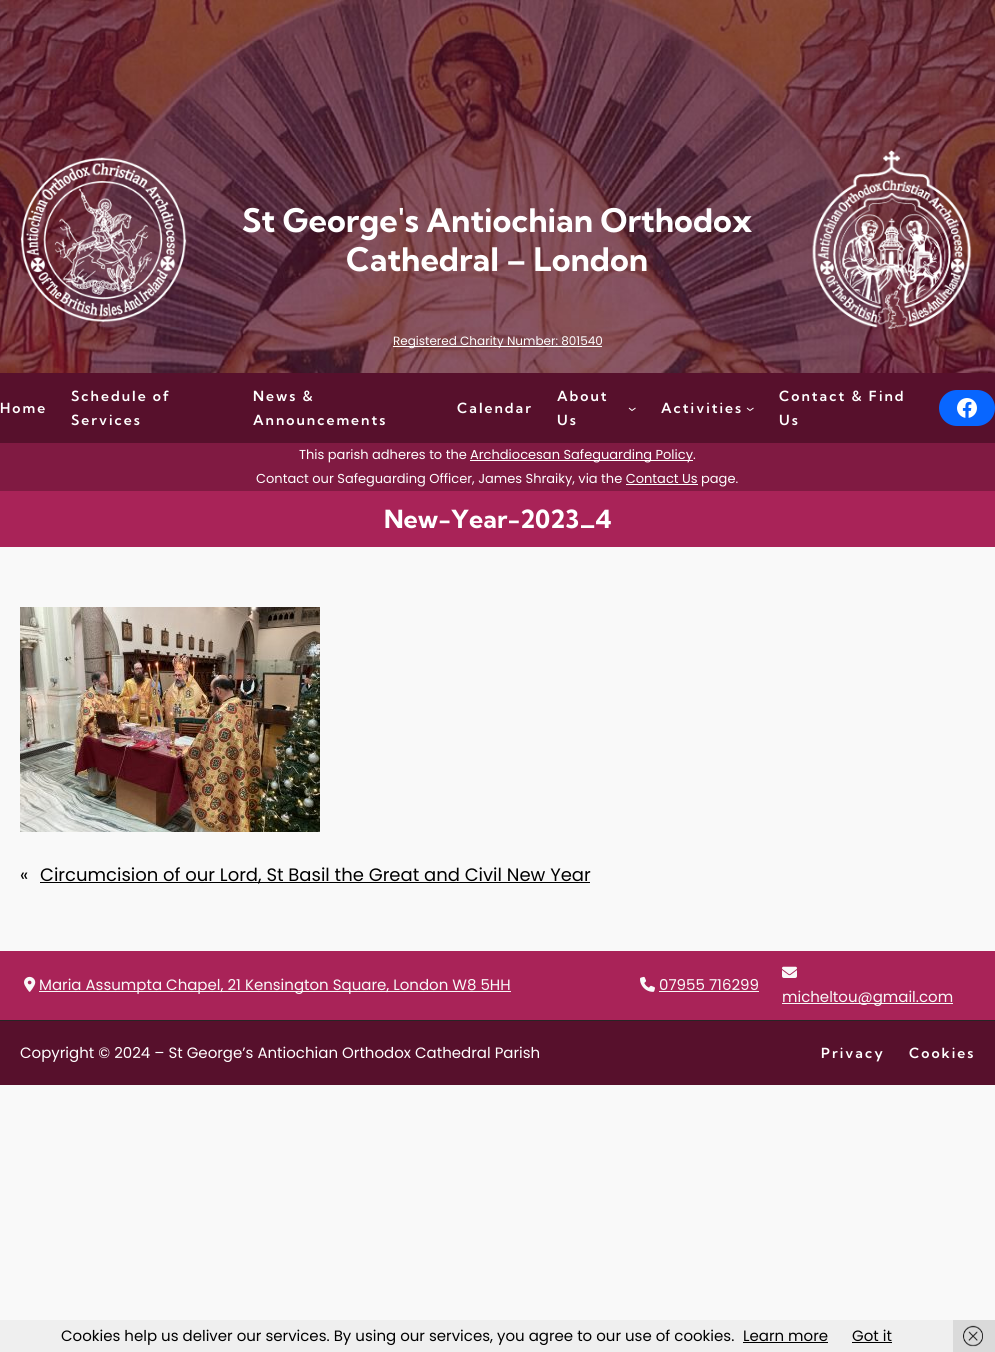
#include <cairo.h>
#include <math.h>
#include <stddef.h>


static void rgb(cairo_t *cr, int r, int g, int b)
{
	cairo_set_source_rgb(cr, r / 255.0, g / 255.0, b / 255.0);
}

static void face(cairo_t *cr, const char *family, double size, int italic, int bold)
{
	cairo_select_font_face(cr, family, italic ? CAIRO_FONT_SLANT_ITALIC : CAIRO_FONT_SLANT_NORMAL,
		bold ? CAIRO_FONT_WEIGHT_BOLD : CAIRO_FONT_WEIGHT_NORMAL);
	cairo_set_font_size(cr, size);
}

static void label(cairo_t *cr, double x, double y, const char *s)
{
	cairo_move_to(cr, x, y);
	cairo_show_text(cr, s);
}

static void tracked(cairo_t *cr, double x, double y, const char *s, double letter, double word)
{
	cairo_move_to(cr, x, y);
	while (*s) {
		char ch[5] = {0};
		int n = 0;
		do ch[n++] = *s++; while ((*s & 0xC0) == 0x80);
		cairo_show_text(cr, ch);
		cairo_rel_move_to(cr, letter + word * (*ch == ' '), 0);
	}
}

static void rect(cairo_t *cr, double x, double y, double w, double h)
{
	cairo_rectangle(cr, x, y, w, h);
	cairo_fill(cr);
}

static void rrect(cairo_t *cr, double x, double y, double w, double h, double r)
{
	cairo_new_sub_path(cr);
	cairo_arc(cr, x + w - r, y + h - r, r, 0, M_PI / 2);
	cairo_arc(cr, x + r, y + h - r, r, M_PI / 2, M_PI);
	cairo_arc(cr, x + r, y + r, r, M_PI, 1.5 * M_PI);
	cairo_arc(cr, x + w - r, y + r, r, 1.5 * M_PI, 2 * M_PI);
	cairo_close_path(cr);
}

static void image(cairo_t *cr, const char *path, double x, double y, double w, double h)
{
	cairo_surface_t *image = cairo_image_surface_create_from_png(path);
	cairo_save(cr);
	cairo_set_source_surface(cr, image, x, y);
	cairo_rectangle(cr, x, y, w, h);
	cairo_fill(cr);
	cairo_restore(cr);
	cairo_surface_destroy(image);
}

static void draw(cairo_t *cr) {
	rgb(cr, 249, 249, 249);
	cairo_paint(cr);
	image(cr, "image0.png", 0, 0, 995, 373);
	image(cr, "image1.png", 20, 157, 167, 166);
	face(cr, "Kumbh Sans", 32.4, 0, 1);
	rgb(cr, 255, 255, 255);
	label(cr, 242, 232, "St George's Antiochian Orthodox");
	label(cr, 346, 271, "Cathedral – London");
	image(cr, "image2.png", 812, 150, 160, 179);
	rect(cr, 393, 346, 209, 1);
	face(cr, "Poppins", 12, 0, 0);
	label(cr, 393, 345, "Registered Charity Number: 801540");
	rgb(cr, 87, 16, 44);
	rect(cr, 0, 373, 995, 70);
	face(cr, "Kumbh Sans SemiBold", 14, 0, 0);
	rgb(cr, 255, 255, 255);
	tracked(cr, 0, 413, "Home", 2, 0);
	tracked(cr, 71, 401, "Schedule of", 2, 0);
	tracked(cr, 71, 425, "Services", 2, 0);
	tracked(cr, 253, 401, "News &", 2, 0);
	tracked(cr, 253, 425, "Announcements", 2, 0);
	tracked(cr, 457, 413, "Calendar", 2, 0);
	tracked(cr, 557, 401, "About", 2, 0);
	tracked(cr, 557, 425, "Us", 2, 0);
	cairo_new_path(cr);
	cairo_move_to(cr, 629, 408);
	cairo_line_to(cr, 632, 410.5);
	cairo_line_to(cr, 635.5, 408);
	cairo_set_line_width(cr, 1);
	cairo_stroke(cr);
	tracked(cr, 661, 413, "Activities", 2, 0);
	cairo_new_path(cr);
	cairo_move_to(cr, 747, 408);
	cairo_line_to(cr, 750, 410.5);
	cairo_line_to(cr, 753.5, 408);
	cairo_stroke(cr);
	tracked(cr, 779, 401, "Contact & Find", 2, 0);
	tracked(cr, 779, 425, "Us", 2, 0);
	rgb(cr, 8, 102, 255);
	rrect(cr, 939, 390, 56, 36, 18);
	cairo_fill(cr);
	image(cr, "image3.png", 957, 398, 20, 20);
	rgb(cr, 128, 26, 66);
	rect(cr, 0, 443, 995, 48);
	face(cr, "Poppins", 13, 0, 0);
	rgb(cr, 255, 255, 255);
	label(cr, 299, 459, "This parish adheres to the");
	rect(cr, 470, 460, 223, 1);
	label(cr, 470, 459, "Archdiocesan Safeguarding Policy.");
	label(cr, 256, 483, "Contact our Safeguarding Officer, James Shraiky, via the Contact Us page.");
	rect(cr, 626, 484, 72, 1);
	rgb(cr, 169, 35, 88);
	rect(cr, 0, 491, 995, 56);
	face(cr, "Kumbh Sans", 25, 0, 1);
	rgb(cr, 255, 255, 255);
	label(cr, 384, 528, "New-Year-2023_4");
	image(cr, "image4.png", 20, 607, 300, 225);
	face(cr, "Poppins", 18, 0, 0);
	rgb(cr, 0, 0, 0);
	label(cr, 20, 881, "«");
	rect(cr, 40, 882, 550, 1);
	label(cr, 40, 881, "Circumcision of our Lord, St Basil the Great and Civil New Year");
	rgb(cr, 169, 35, 88);
	rect(cr, 0, 951, 995, 69);
	image(cr, "image5.png", 24, 976, 12, 16);
	rgb(cr, 249, 249, 249);
	rect(cr, 39, 991, 472, 1);
	face(cr, "Poppins", 15, 0, 0);
	label(cr, 39, 990, "Maria Assumpta Chapel, 21 Kensington Square, London W8 5HH");
	image(cr, "image6.png", 640, 976, 15, 16);
	label(cr, 659, 990, "07955 716299");
	rect(cr, 659, 991, 100, 1);
	image(cr, "image7.png", 782, 966, 15, 12);
	rect(cr, 782, 1003, 171, 1);
	label(cr, 782, 1002, "micheltou@gmail.com");
	rgb(cr, 87, 16, 44);
	rect(cr, 0, 1021, 995, 64);
	rgb(cr, 38, 37, 37);
	rect(cr, 0, 1020, 995, 1);
	rgb(cr, 255, 255, 255);
	label(cr, 20, 1058, "Copyright © 2024 – St George’s Antiochian Orthodox Cathedral Parish");
	face(cr, "Kumbh Sans SemiBold", 14, 0, 0);
	tracked(cr, 821, 1058, "Privacy", 2, 0);
	tracked(cr, 909, 1058, "Cookies", 2, 0);
	rgb(cr, 239, 239, 239);
	rect(cr, 0, 1320, 953, 32);
	face(cr, "Poppins", 15, 0, 0);
	rgb(cr, 0, 0, 0);
	label(cr, 61, 1341, "Cookies help us deliver our services. By using our services, you agree to our use of cookies.");
	label(cr, 743, 1341, "Learn more");
	rect(cr, 743, 1342, 85, 1);
	label(cr, 852, 1341, "Got it");
	rect(cr, 852, 1342, 40, 1);
	rgb(cr, 218, 218, 218);
	rect(cr, 953, 1320, 42, 32);
	image(cr, "image8.png", 963, 1325, 20, 22);
}

int main(void) {
	cairo_surface_t *surface = cairo_image_surface_create(CAIRO_FORMAT_RGB24, 995, 1352);
	cairo_t *cr = cairo_create(surface);
	cairo_font_options_t *options = cairo_font_options_create();
	cairo_font_options_set_hint_metrics(options, CAIRO_HINT_METRICS_OFF);
	cairo_font_options_set_hint_style(options, CAIRO_HINT_STYLE_NONE);
	cairo_set_font_options(cr, options);
	cairo_set_miter_limit(cr, 4);
	draw(cr);
	cairo_surface_write_to_png(surface, "render.png");
	cairo_font_options_destroy(options);
	cairo_destroy(cr);
	cairo_surface_destroy(surface);
	return 0;
}
